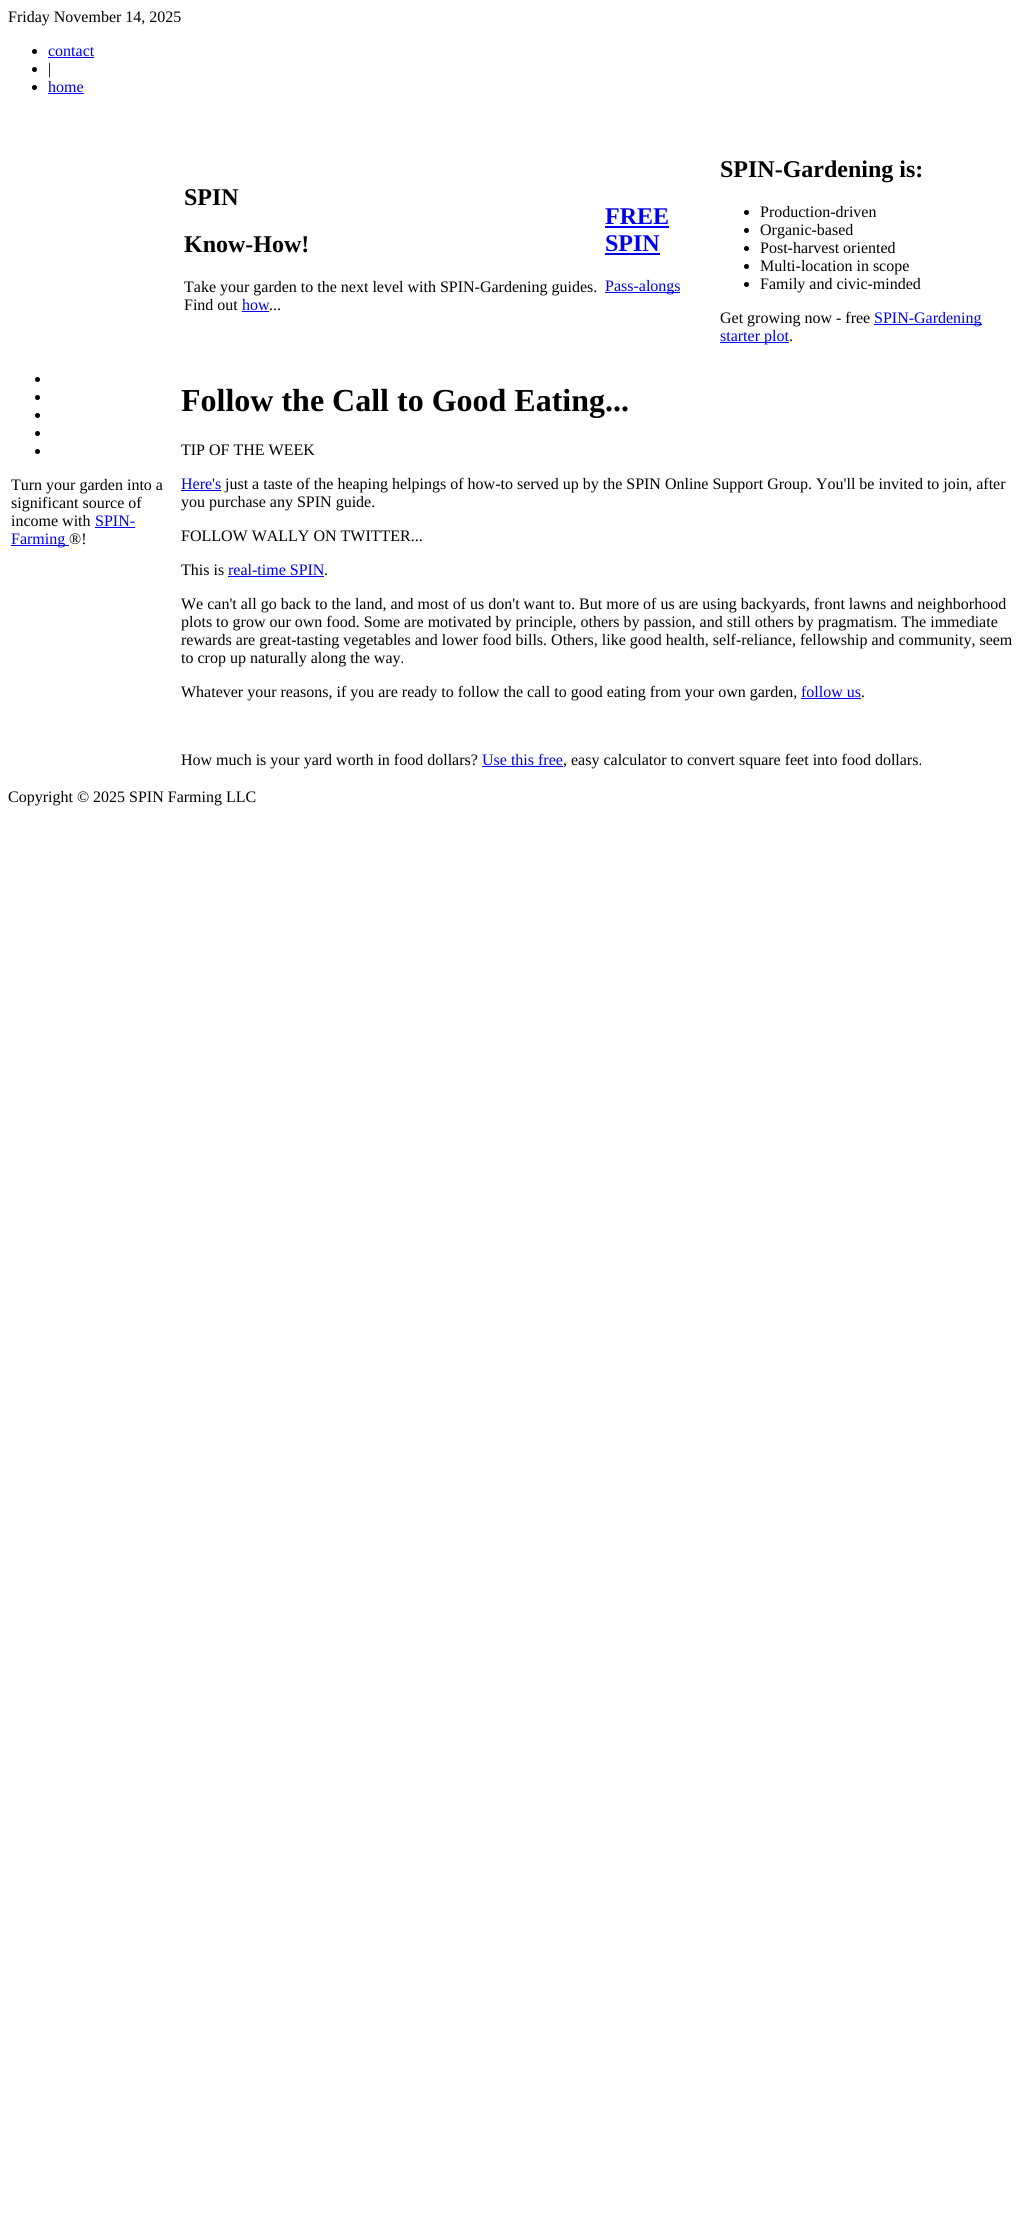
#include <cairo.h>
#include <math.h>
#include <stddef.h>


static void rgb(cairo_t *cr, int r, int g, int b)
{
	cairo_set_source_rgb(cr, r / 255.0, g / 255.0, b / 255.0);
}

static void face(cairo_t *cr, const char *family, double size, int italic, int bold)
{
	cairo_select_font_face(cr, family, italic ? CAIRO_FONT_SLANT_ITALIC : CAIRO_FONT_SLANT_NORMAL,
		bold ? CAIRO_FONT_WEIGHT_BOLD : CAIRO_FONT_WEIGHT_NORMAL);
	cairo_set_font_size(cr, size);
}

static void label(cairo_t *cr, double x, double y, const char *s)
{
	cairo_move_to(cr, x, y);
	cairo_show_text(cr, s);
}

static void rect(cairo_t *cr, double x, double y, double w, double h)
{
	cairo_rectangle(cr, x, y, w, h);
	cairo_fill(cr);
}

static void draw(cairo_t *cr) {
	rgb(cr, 255, 255, 255);
	cairo_paint(cr);
	face(cr, "Liberation Serif", 16, 0, 0);
	rgb(cr, 0, 0, 0);
	label(cr, 8, 22, "Friday November 14, 2025");
	cairo_new_path(cr);
	cairo_arc(cr, 34.5, 51.5, 2.5, 0, 2 * M_PI);
	cairo_fill(cr);
	rgb(cr, 0, 0, 238);
	label(cr, 48, 56, "contact");
	rect(cr, 48, 57, 46, 1);
	rgb(cr, 0, 0, 0);
	cairo_new_path(cr);
	cairo_arc(cr, 34.5, 69.5, 2.5, 0, 2 * M_PI);
	cairo_fill(cr);
	label(cr, 48, 74, "|");
	cairo_new_path(cr);
	cairo_arc(cr, 34.5, 87.5, 2.5, 0, 2 * M_PI);
	cairo_fill(cr);
	rgb(cr, 0, 0, 238);
	label(cr, 48, 92, "home");
	rect(cr, 48, 93, 36, 1);
	rgb(cr, 0, 0, 0);
	cairo_new_path(cr);
	cairo_arc(cr, 37.5, 379.5, 2.5, 0, 2 * M_PI);
	cairo_fill(cr);
	cairo_arc(cr, 37.5, 397.5, 2.5, 0, 2 * M_PI);
	cairo_fill(cr);
	cairo_arc(cr, 37.5, 415.5, 2.5, 0, 2 * M_PI);
	cairo_fill(cr);
	cairo_arc(cr, 37.5, 433.5, 2.5, 0, 2 * M_PI);
	cairo_fill(cr);
	cairo_arc(cr, 37.5, 451.5, 2.5, 0, 2 * M_PI);
	cairo_fill(cr);
	label(cr, 11, 490, "Turn your garden into a");
	label(cr, 11, 508, "significant source of");
	label(cr, 11, 526, "income with");
	rgb(cr, 0, 0, 238);
	label(cr, 95, 526, "SPIN-");
	rect(cr, 95, 527, 40, 1);
	rect(cr, 11, 545, 58, 1);
	label(cr, 11, 544, "Farming");
	rgb(cr, 0, 0, 0);
	label(cr, 69, 544, "®!");
	face(cr, "Liberation Serif", 24, 0, 1);
	label(cr, 184, 205, "SPIN");
	label(cr, 184, 252, "Know-How!");
	face(cr, "Liberation Serif", 16, 0, 0);
	label(cr, 184, 292, "Take your garden to the next level with SPIN-Gardening guides.");
	label(cr, 184, 310, "Find out");
	rgb(cr, 0, 0, 238);
	label(cr, 242, 310, "how");
	rect(cr, 242, 311, 27, 1);
	rgb(cr, 0, 0, 0);
	label(cr, 269, 310, "...");
	face(cr, "Liberation Serif", 24, 0, 1);
	rgb(cr, 0, 0, 238);
	label(cr, 605, 224, "FREE");
	rect(cr, 605, 226, 64, 2);
	label(cr, 605, 251, "SPIN");
	rect(cr, 605, 253, 55, 2);
	rect(cr, 605, 292, 75, 1);
	face(cr, "Liberation Serif", 16, 0, 0);
	label(cr, 605, 291, "Pass-alongs");
	face(cr, "Liberation Serif", 24, 0, 1);
	rgb(cr, 0, 0, 0);
	label(cr, 720, 177, "SPIN-Gardening is:");
	cairo_new_path(cr);
	cairo_arc(cr, 746.5, 212.5, 2.5, 0, 2 * M_PI);
	cairo_fill(cr);
	face(cr, "Liberation Serif", 16, 0, 0);
	label(cr, 760, 217, "Production-driven");
	cairo_new_path(cr);
	cairo_arc(cr, 746.5, 230.5, 2.5, 0, 2 * M_PI);
	cairo_fill(cr);
	label(cr, 760, 235, "Organic-based");
	cairo_new_path(cr);
	cairo_arc(cr, 746.5, 248.5, 2.5, 0, 2 * M_PI);
	cairo_fill(cr);
	label(cr, 760, 253, "Post-harvest oriented");
	cairo_new_path(cr);
	cairo_arc(cr, 746.5, 266.5, 2.5, 0, 2 * M_PI);
	cairo_fill(cr);
	label(cr, 760, 271, "Multi-location in scope");
	cairo_new_path(cr);
	cairo_arc(cr, 746.5, 284.5, 2.5, 0, 2 * M_PI);
	cairo_fill(cr);
	label(cr, 760, 289, "Family and civic-minded");
	label(cr, 720, 323, "Get growing now - free");
	rgb(cr, 0, 0, 238);
	rect(cr, 874, 324, 108, 1);
	label(cr, 874, 323, "SPIN-Gardening");
	rect(cr, 720, 342, 69, 1);
	label(cr, 720, 341, "starter plot");
	rgb(cr, 0, 0, 0);
	label(cr, 789, 341, ".");
	face(cr, "Liberation Serif", 32, 0, 1);
	label(cr, 181, 411, "Follow the Call to Good Eating...");
	face(cr, "Liberation Serif", 16, 0, 0);
	label(cr, 181, 455, "TIP OF THE WEEK");
	rgb(cr, 0, 0, 238);
	label(cr, 181, 489, "Here's");
	rect(cr, 181, 490, 40, 1);
	rgb(cr, 0, 0, 0);
	label(cr, 225, 489, "just a taste of the heaping helpings of how-to served up by the SPIN Online Support Group. You'll be invited to join, after");
	label(cr, 181, 507, "you purchase any SPIN guide.");
	label(cr, 181, 541, "FOLLOW WALLY ON TWITTER...");
	label(cr, 181, 575, "This is");
	rgb(cr, 0, 0, 238);
	label(cr, 228, 575, "real-time SPIN");
	rect(cr, 228, 576, 96, 1);
	rgb(cr, 0, 0, 0);
	label(cr, 324, 575, ".");
	label(cr, 181, 609, "We can't all go back to the land, and most of us don't want to. But more of us are using backyards, front lawns and neighborhood");
	label(cr, 181, 627, "plots to grow our own food. Some are motivated by principle, others by passion, and still others by pragmatism. The immediate");
	label(cr, 181, 645, "rewards are great-tasting vegetables and lower food bills. Others, like good health, self-reliance, fellowship and community, seem");
	label(cr, 181, 663, "to crop up naturally along the way.");
	label(cr, 181, 697, "Whatever your reasons, if you are ready to follow the call to good eating from your own garden,");
	rgb(cr, 0, 0, 238);
	label(cr, 801, 697, "follow us");
	rect(cr, 801, 698, 60, 1);
	rgb(cr, 0, 0, 0);
	label(cr, 861, 697, ".");
	label(cr, 181, 765, "How much is your yard worth in food dollars?");
	rgb(cr, 0, 0, 238);
	label(cr, 482, 765, "Use this free");
	rect(cr, 482, 766, 81, 1);
	rgb(cr, 0, 0, 0);
	label(cr, 563, 765, ", easy calculator to convert square feet into food dollars.");
	label(cr, 8, 802, "Copyright © 2025 SPIN Farming LLC");
}

int main(void) {
	cairo_surface_t *surface = cairo_image_surface_create(CAIRO_FORMAT_RGB24, 1024, 2213);
	cairo_t *cr = cairo_create(surface);
	cairo_font_options_t *options = cairo_font_options_create();
	cairo_font_options_set_hint_metrics(options, CAIRO_HINT_METRICS_OFF);
	cairo_font_options_set_hint_style(options, CAIRO_HINT_STYLE_NONE);
	cairo_set_font_options(cr, options);
	cairo_set_miter_limit(cr, 4);
	draw(cr);
	cairo_surface_write_to_png(surface, "render.png");
	cairo_font_options_destroy(options);
	cairo_destroy(cr);
	cairo_surface_destroy(surface);
	return 0;
}
